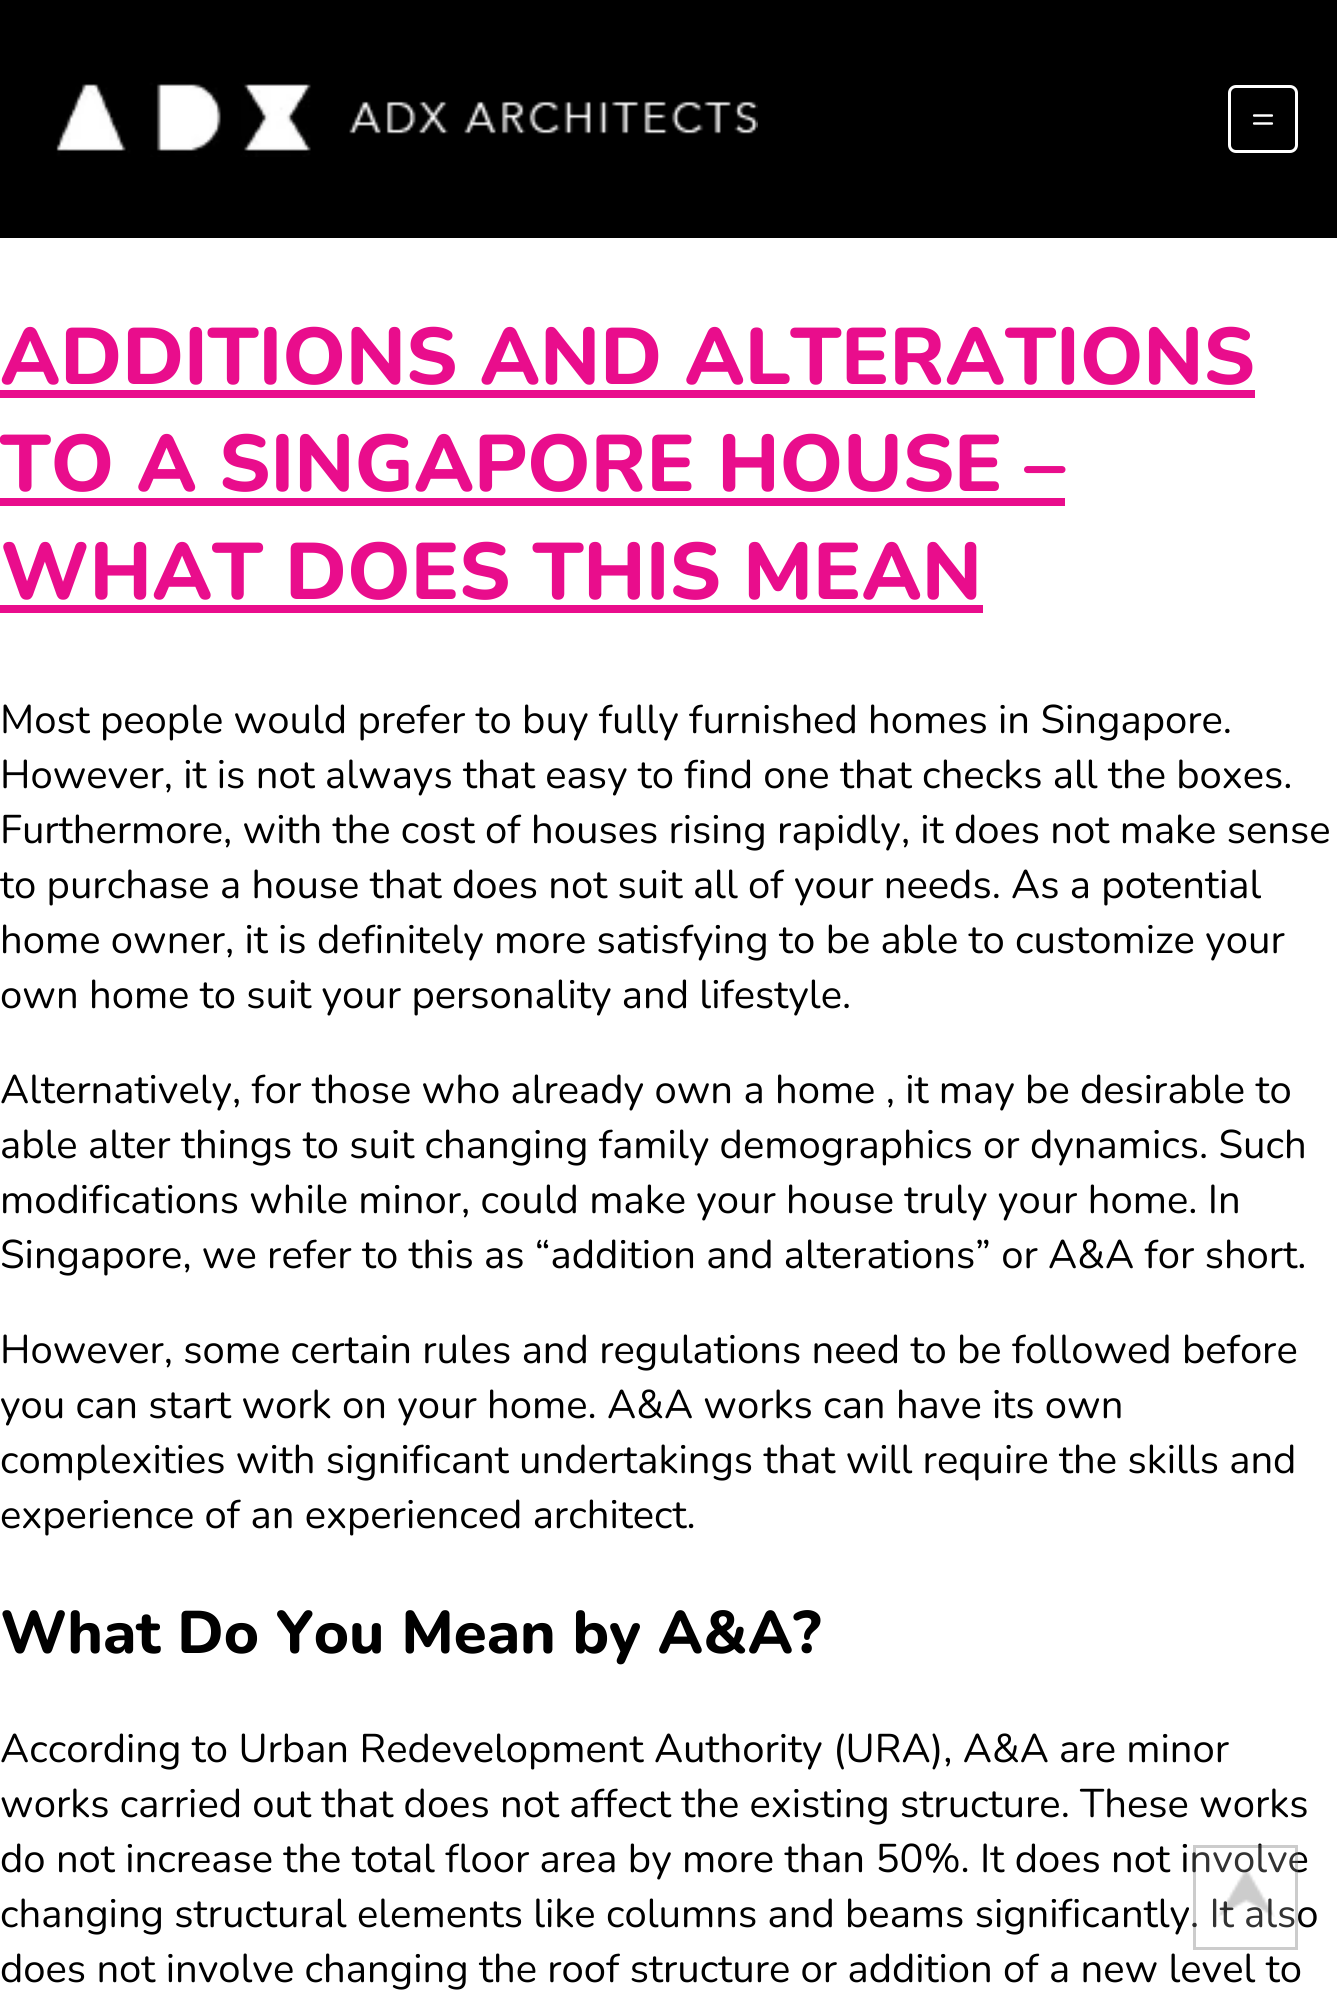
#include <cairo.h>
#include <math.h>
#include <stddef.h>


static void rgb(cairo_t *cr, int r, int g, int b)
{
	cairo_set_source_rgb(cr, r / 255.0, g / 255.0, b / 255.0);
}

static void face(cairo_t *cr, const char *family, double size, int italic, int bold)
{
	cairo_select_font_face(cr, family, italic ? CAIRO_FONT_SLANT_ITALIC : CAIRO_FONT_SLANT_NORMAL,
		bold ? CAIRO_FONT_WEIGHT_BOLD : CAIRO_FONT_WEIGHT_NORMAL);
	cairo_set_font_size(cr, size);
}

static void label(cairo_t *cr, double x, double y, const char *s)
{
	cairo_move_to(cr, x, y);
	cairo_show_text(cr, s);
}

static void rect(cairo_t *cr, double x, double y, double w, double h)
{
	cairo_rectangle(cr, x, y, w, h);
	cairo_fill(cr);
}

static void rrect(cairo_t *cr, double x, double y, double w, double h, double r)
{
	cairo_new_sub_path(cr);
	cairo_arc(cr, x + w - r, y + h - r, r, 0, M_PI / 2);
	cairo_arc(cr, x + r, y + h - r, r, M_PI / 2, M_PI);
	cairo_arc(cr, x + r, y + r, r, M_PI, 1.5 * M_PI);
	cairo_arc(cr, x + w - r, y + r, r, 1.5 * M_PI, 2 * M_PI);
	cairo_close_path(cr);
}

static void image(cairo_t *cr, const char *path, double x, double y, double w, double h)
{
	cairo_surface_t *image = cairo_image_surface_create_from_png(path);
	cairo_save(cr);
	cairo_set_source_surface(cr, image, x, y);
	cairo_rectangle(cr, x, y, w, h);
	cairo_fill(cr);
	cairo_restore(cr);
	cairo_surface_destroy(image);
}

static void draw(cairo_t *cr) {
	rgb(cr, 255, 255, 255);
	cairo_paint(cr);
	rgb(cr, 0, 0, 0);
	rect(cr, 0, 0, 1337, 238);
	image(cr, "image0.png", 56, 81, 702, 76);
	rrect(cr, 1229.5, 86.5, 67, 65, 6.5);
	rgb(cr, 255, 255, 255);
	cairo_set_line_width(cr, 3);
	cairo_stroke(cr);
	face(cr, "Nunito", 40, 0, 0);
	label(cr, 1251, 131, "=");
	face(cr, "Nunito ExtraBold", 80, 0, 0);
	rgb(cr, 233, 13, 140);
	label(cr, 0, 384, "ADDITIONS AND ALTERATIONS");
	rect(cr, 0, 390, 1255, 8);
	label(cr, 0, 491, "TO A SINGAPORE HOUSE –");
	rect(cr, 0, 498, 1065, 8);
	label(cr, 0, 599, "WHAT DOES THIS MEAN");
	rect(cr, 0, 605, 983, 8);
	face(cr, "Nunito", 40, 0, 0);
	rgb(cr, 0, 0, 0);
	label(cr, 0, 733, "Most people would prefer to buy fully furnished homes in Singapore.");
	label(cr, 0, 788, "However, it is not always that easy to find one that checks all the boxes.");
	label(cr, 0, 843, "Furthermore, with the cost of houses rising rapidly, it does not make sense");
	label(cr, 0, 898, "to purchase a house that does not suit all of your needs. As a potential");
	label(cr, 0, 953, "home owner, it is definitely more satisfying to be able to customize your");
	label(cr, 0, 1008, "own home to suit your personality and lifestyle.");
	label(cr, 0, 1103, "Alternatively, for those who already own a home , it may be desirable to");
	label(cr, 0, 1158, "able alter things to suit changing family demographics or dynamics. Such");
	label(cr, 0, 1213, "modifications while minor, could make your house truly your home. In");
	label(cr, 0, 1268, "Singapore, we refer to this as “addition and alterations” or A&A for short.");
	label(cr, 0, 1363, "However, some certain rules and regulations need to be followed before");
	label(cr, 0, 1418, "you can start work on your home. A&A works can have its own");
	label(cr, 0, 1473, "complexities with significant undertakings that will require the skills and");
	label(cr, 0, 1528, "experience of an experienced architect.");
	face(cr, "Nunito ExtraBold", 60, 0, 0);
	label(cr, 0, 1653, "What Do You Mean by A&A?");
	face(cr, "Nunito", 40, 0, 0);
	label(cr, 0, 1762, "According to Urban Redevelopment Authority (URA), A&A are minor");
	label(cr, 0, 1817, "works carried out that does not affect the existing structure. These works");
	label(cr, 0, 1872, "do not increase the total floor area by more than 50%. It does not involve");
	label(cr, 0, 1927, "changing structural elements like columns and beams significantly. It also");
	label(cr, 0, 1982, "does not involve changing the roof structure or addition of a new level to");
	cairo_set_source_rgba(cr, 1, 1, 1, 0.2);
	rect(cr, 1193, 1845, 105, 83);
	cairo_rectangle(cr, 1194.5, 1846.5, 102, 102);
	cairo_set_source_rgba(cr, 0, 0, 0, 0.2);
	cairo_stroke(cr);
	image(cr, "image1.png", 1218, 1868, 57, 49);
}

int main(void) {
	cairo_surface_t *surface = cairo_image_surface_create(CAIRO_FORMAT_RGB24, 1337, 1990);
	cairo_t *cr = cairo_create(surface);
	cairo_font_options_t *options = cairo_font_options_create();
	cairo_font_options_set_hint_metrics(options, CAIRO_HINT_METRICS_OFF);
	cairo_font_options_set_hint_style(options, CAIRO_HINT_STYLE_NONE);
	cairo_set_font_options(cr, options);
	cairo_set_miter_limit(cr, 4);
	draw(cr);
	cairo_surface_write_to_png(surface, "render.png");
	cairo_font_options_destroy(options);
	cairo_destroy(cr);
	cairo_surface_destroy(surface);
	return 0;
}
